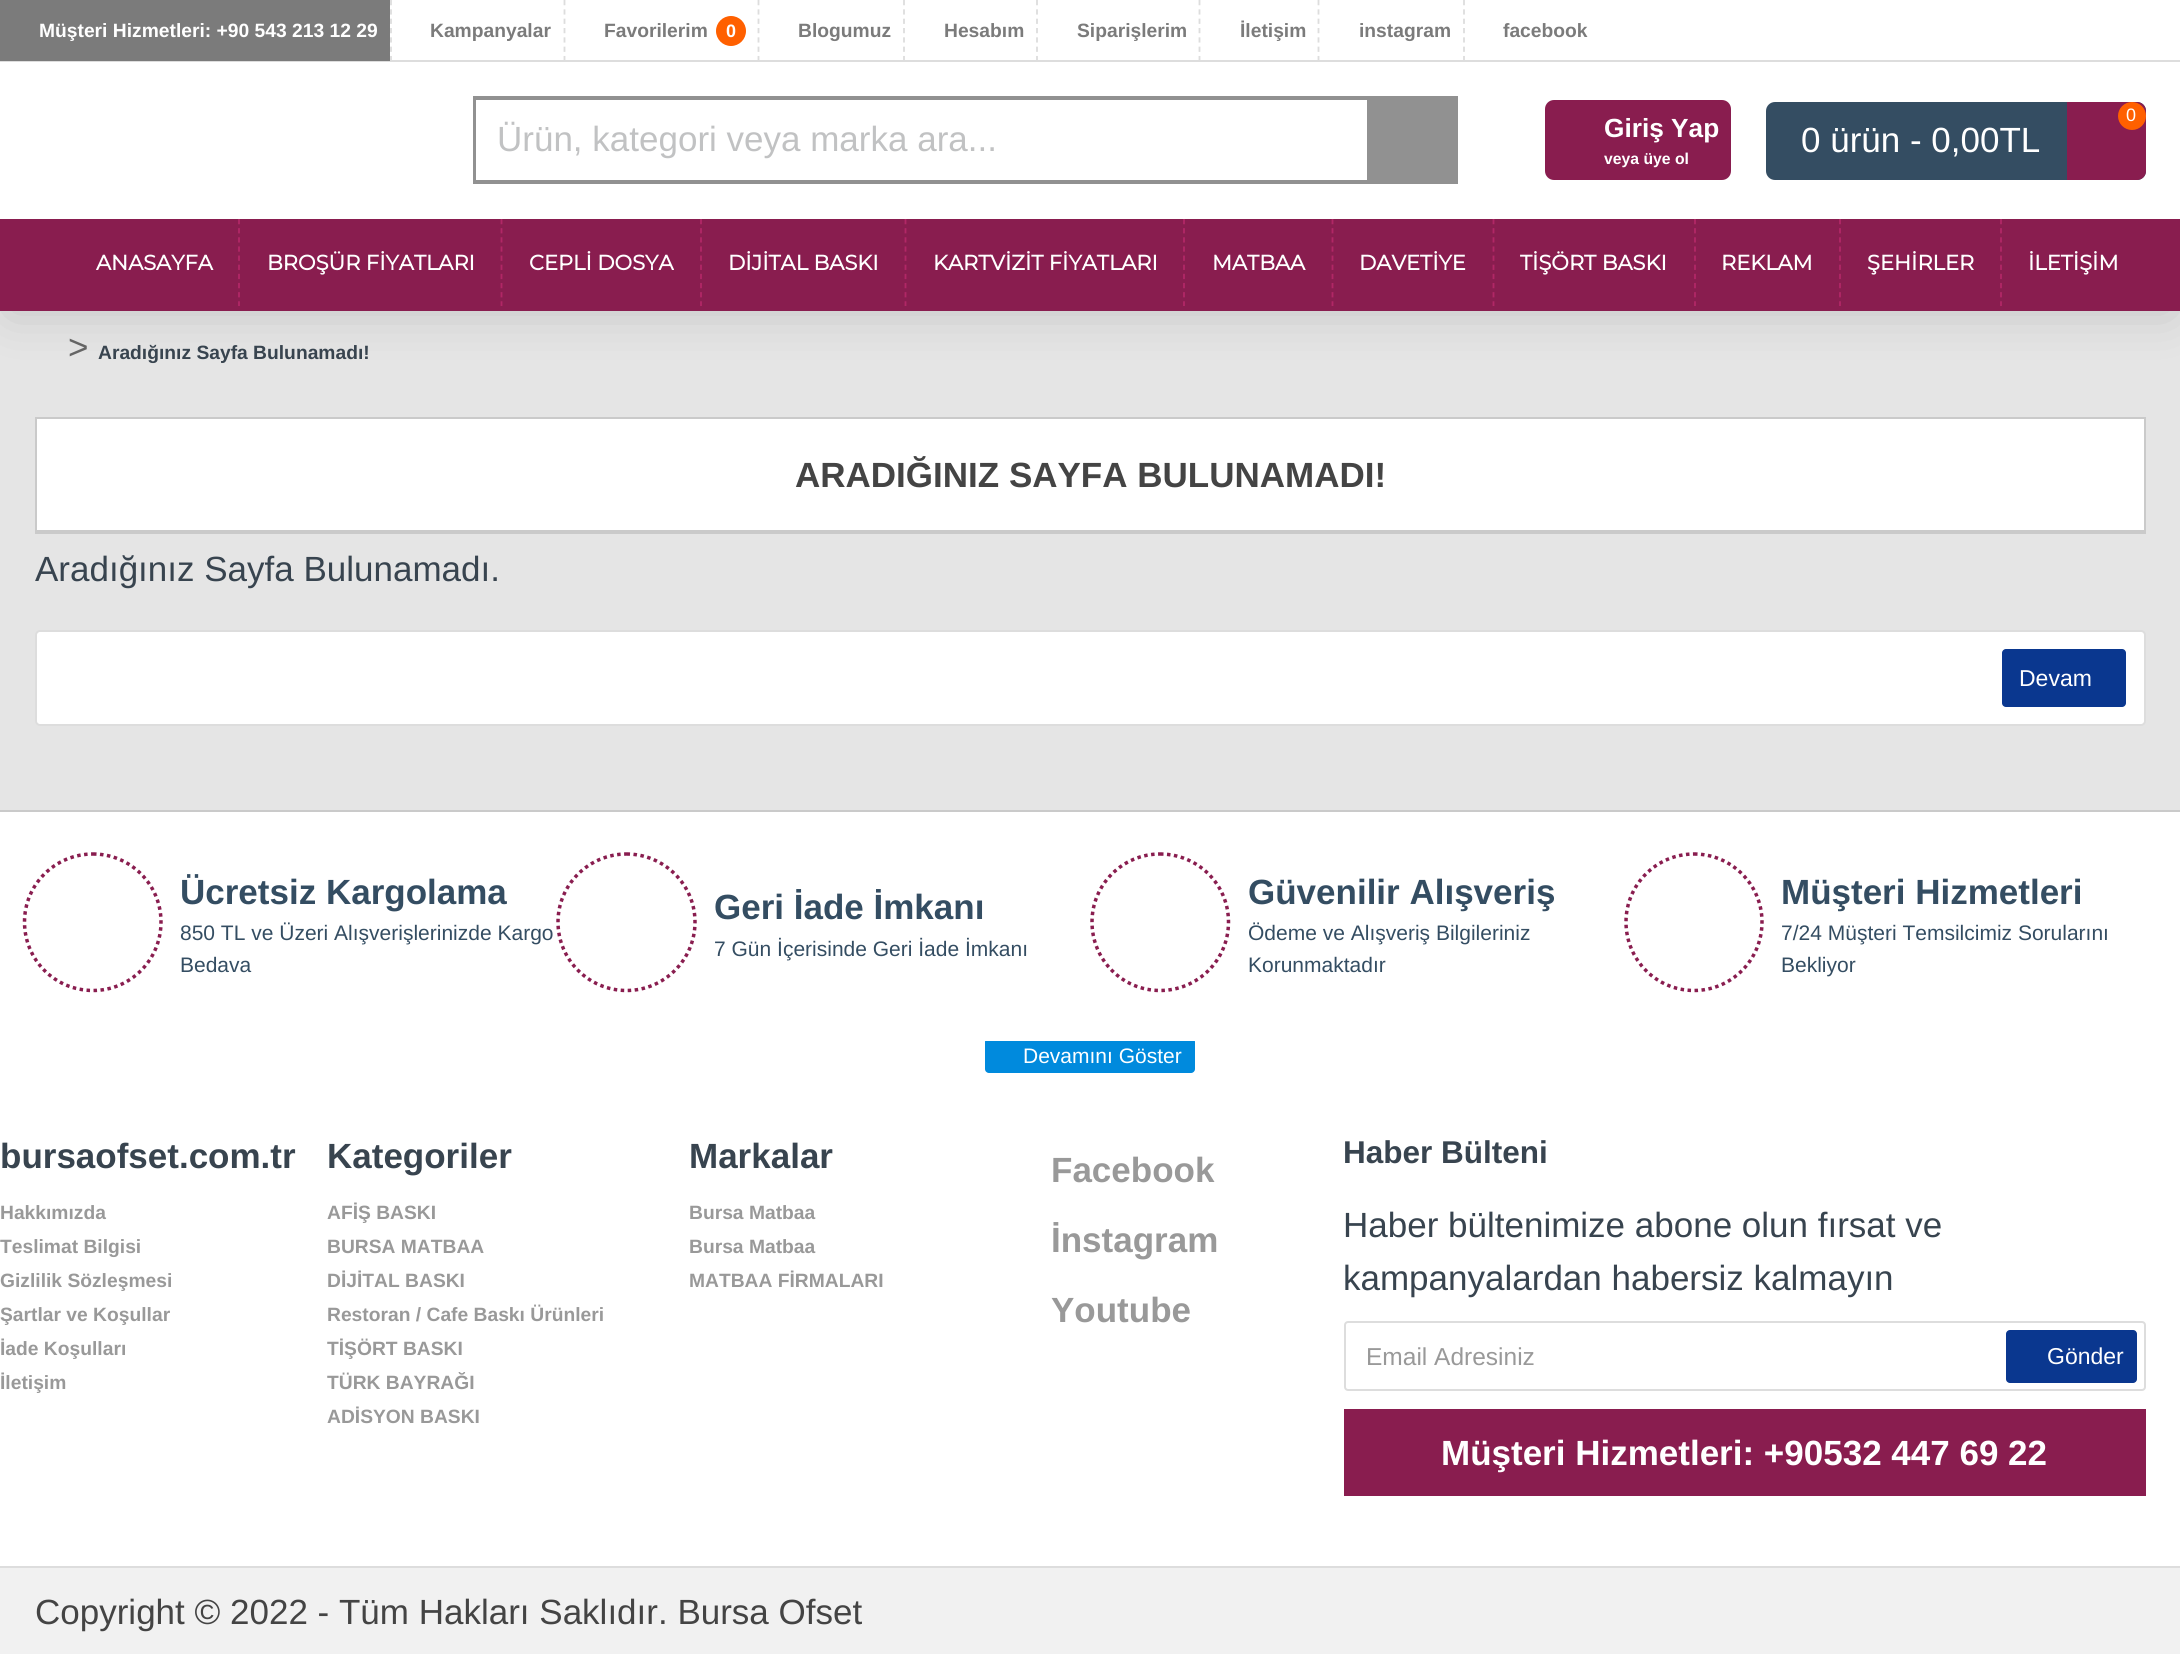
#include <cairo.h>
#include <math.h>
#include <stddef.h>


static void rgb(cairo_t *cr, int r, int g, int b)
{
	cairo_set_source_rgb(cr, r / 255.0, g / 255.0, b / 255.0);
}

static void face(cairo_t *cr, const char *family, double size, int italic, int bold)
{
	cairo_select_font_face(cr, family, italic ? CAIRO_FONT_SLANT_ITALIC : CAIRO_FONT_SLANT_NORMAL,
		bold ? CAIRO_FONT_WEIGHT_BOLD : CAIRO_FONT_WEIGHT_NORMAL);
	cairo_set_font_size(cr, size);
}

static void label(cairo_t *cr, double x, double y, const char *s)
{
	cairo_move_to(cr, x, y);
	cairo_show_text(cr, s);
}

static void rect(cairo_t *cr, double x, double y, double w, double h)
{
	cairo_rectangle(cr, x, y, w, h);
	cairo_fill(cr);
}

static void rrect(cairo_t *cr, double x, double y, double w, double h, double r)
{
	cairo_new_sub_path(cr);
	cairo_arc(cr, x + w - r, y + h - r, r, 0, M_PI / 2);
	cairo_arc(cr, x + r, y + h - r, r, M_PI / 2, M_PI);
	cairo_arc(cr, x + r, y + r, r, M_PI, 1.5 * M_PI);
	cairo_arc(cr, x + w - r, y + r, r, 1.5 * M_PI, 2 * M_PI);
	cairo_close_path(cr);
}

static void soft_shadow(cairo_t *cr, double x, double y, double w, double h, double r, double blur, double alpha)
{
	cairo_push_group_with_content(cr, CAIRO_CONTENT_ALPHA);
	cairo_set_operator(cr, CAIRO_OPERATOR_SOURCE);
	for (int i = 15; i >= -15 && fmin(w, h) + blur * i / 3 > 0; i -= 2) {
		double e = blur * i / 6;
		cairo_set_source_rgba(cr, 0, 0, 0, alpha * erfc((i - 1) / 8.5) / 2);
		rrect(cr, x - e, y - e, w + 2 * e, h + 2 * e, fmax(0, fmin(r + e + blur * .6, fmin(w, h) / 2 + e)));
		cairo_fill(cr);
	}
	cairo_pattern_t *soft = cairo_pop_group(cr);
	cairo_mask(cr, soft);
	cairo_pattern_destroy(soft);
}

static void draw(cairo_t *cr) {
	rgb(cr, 229, 229, 229);
	cairo_paint(cr);
	rgb(cr, 0, 0, 0);
	soft_shadow(cr, 9, 18, 2163, 294, 0, 26, 0.15);
	rgb(cr, 255, 255, 255);
	rect(cr, 0, 0, 2180, 219);
	rgb(cr, 137, 29, 79);
	rect(cr, 0, 219, 2180, 92);
	rgb(cr, 221, 221, 221);
	rect(cr, 0, 60, 2180, 2);
	rgb(cr, 123, 123, 123);
	rect(cr, 0, 0, 390, 61);
	face(cr, "Liberation Sans", 19.25, 0, 1);
	rgb(cr, 255, 255, 255);
	label(cr, 39, 37, "Müşteri Hizmetleri: +90 543 213 12 29");
	cairo_new_path(cr);
	cairo_move_to(cr, 391, 0);
	cairo_line_to(cr, 391, 61);
	rgb(cr, 221, 221, 221);
	cairo_set_line_width(cr, 1.8);
	cairo_set_dash(cr, (double[]){5.25, 4.08}, 2, 0);
	cairo_stroke(cr);
	rgb(cr, 123, 123, 123);
	label(cr, 430, 37, "Kampanyalar");
	cairo_new_path(cr);
	cairo_move_to(cr, 564.5, 0);
	cairo_line_to(cr, 564.5, 61);
	rgb(cr, 221, 221, 221);
	cairo_stroke(cr);
	rgb(cr, 123, 123, 123);
	label(cr, 604, 37, "Favorilerim");
	rgb(cr, 255, 96, 0);
	cairo_new_path(cr);
	cairo_arc(cr, 731, 31, 15, 0, 2 * M_PI);
	cairo_fill(cr);
	face(cr, "Liberation Sans", 18, 0, 1);
	rgb(cr, 255, 255, 255);
	label(cr, 726, 37, "0");
	cairo_new_path(cr);
	cairo_move_to(cr, 758.5, 0);
	cairo_line_to(cr, 758.5, 61);
	rgb(cr, 221, 221, 221);
	cairo_stroke(cr);
	face(cr, "Liberation Sans", 19.25, 0, 1);
	rgb(cr, 123, 123, 123);
	label(cr, 798, 37, "Blogumuz");
	cairo_new_path(cr);
	cairo_move_to(cr, 904, 0);
	cairo_line_to(cr, 904, 61);
	rgb(cr, 221, 221, 221);
	cairo_stroke(cr);
	rgb(cr, 123, 123, 123);
	label(cr, 944, 37, "Hesabım");
	cairo_new_path(cr);
	cairo_move_to(cr, 1037, 0);
	cairo_line_to(cr, 1037, 61);
	rgb(cr, 221, 221, 221);
	cairo_stroke(cr);
	rgb(cr, 123, 123, 123);
	label(cr, 1077, 37, "Siparişlerim");
	cairo_new_path(cr);
	cairo_move_to(cr, 1199.5, 0);
	cairo_line_to(cr, 1199.5, 61);
	rgb(cr, 221, 221, 221);
	cairo_stroke(cr);
	rgb(cr, 123, 123, 123);
	label(cr, 1240, 37, "İletişim");
	cairo_new_path(cr);
	cairo_move_to(cr, 1318.5, 0);
	cairo_line_to(cr, 1318.5, 61);
	rgb(cr, 221, 221, 221);
	cairo_stroke(cr);
	rgb(cr, 123, 123, 123);
	label(cr, 1359, 37, "instagram");
	cairo_new_path(cr);
	cairo_move_to(cr, 1464, 0);
	cairo_line_to(cr, 1464, 61);
	rgb(cr, 221, 221, 221);
	cairo_stroke(cr);
	rgb(cr, 123, 123, 123);
	label(cr, 1503, 37, "facebook");
	cairo_rectangle(cr, 475, 98, 981, 84);
	rgb(cr, 145, 145, 145);
	cairo_set_line_width(cr, 4);
	cairo_set_dash(cr, NULL, 0, 0);
	cairo_stroke(cr);
	rgb(cr, 255, 255, 255);
	rect(cr, 476, 100, 1, 80);
	face(cr, "Liberation Sans", 35, 0, 0);
	rgb(cr, 193, 194, 195);
	label(cr, 497, 151, "Ürün, kategori veya marka ara...");
	rgb(cr, 145, 145, 145);
	rect(cr, 1367, 100, 87, 80);
	rgb(cr, 137, 29, 79);
	rrect(cr, 1545, 100, 186, 80, 9);
	cairo_fill(cr);
	face(cr, "Liberation Sans", 26.25, 0, 1);
	rgb(cr, 255, 255, 255);
	label(cr, 1604, 137, "Giriş Yap");
	face(cr, "Liberation Sans", 15.75, 0, 1);
	label(cr, 1604, 164, "veya üye ol");
	rgb(cr, 52, 77, 98);
	rrect(cr, 1766, 102, 380, 78, 9);
	cairo_fill(cr);
	rgb(cr, 137, 29, 79);
	cairo_new_path(cr);
	cairo_move_to(cr, 2067, 102);
	cairo_line_to(cr, 2137, 102);
	cairo_curve_to(cr, 2142, 102, 2146, 106, 2146, 111);
	cairo_line_to(cr, 2146, 171);
	cairo_curve_to(cr, 2146, 176, 2142, 180, 2137, 180);
	cairo_line_to(cr, 2067, 180);
	cairo_close_path(cr);
	cairo_fill(cr);
	rgb(cr, 255, 96, 0);
	cairo_arc(cr, 2132, 116, 14, 0, 2 * M_PI);
	cairo_fill(cr);
	face(cr, "Liberation Sans", 18, 0, 0);
	rgb(cr, 255, 255, 255);
	label(cr, 2126, 121, "0");
	face(cr, "Liberation Sans", 35, 0, 0);
	label(cr, 1801, 152, "0 ürün - 0,00TL");
	face(cr, "Montserrat", 21, 0, 1);
	label(cr, 96, 270, "ANASAYFA");
	cairo_new_path(cr);
	cairo_move_to(cr, 239, 219);
	cairo_line_to(cr, 239, 306);
	rgb(cr, 177, 39, 102);
	cairo_set_line_width(cr, 1.8);
	cairo_set_dash(cr, (double[]){5.25, 3.89}, 2, 0);
	cairo_stroke(cr);
	rgb(cr, 255, 255, 255);
	label(cr, 267, 270, "BROŞÜR FİYATLARI");
	cairo_new_path(cr);
	cairo_move_to(cr, 501.5, 219);
	cairo_line_to(cr, 501.5, 306);
	rgb(cr, 177, 39, 102);
	cairo_stroke(cr);
	rgb(cr, 255, 255, 255);
	label(cr, 529, 270, "CEPLİ DOSYA");
	cairo_new_path(cr);
	cairo_move_to(cr, 701, 219);
	cairo_line_to(cr, 701, 306);
	rgb(cr, 177, 39, 102);
	cairo_stroke(cr);
	rgb(cr, 255, 255, 255);
	label(cr, 728, 270, "DİJİTAL BASKI");
	cairo_new_path(cr);
	cairo_move_to(cr, 905.5, 219);
	cairo_line_to(cr, 905.5, 306);
	rgb(cr, 177, 39, 102);
	cairo_stroke(cr);
	rgb(cr, 255, 255, 255);
	label(cr, 933, 270, "KARTVİZİT FİYATLARI");
	cairo_new_path(cr);
	cairo_move_to(cr, 1184, 219);
	cairo_line_to(cr, 1184, 306);
	rgb(cr, 177, 39, 102);
	cairo_stroke(cr);
	rgb(cr, 255, 255, 255);
	label(cr, 1212, 270, "MATBAA");
	cairo_new_path(cr);
	cairo_move_to(cr, 1332.5, 219);
	cairo_line_to(cr, 1332.5, 306);
	rgb(cr, 177, 39, 102);
	cairo_stroke(cr);
	rgb(cr, 255, 255, 255);
	label(cr, 1359, 270, "DAVETİYE");
	cairo_new_path(cr);
	cairo_move_to(cr, 1493.5, 219);
	cairo_line_to(cr, 1493.5, 306);
	rgb(cr, 177, 39, 102);
	cairo_stroke(cr);
	rgb(cr, 255, 255, 255);
	label(cr, 1520, 270, "TİŞÖRT BASKI");
	cairo_new_path(cr);
	cairo_move_to(cr, 1695, 219);
	cairo_line_to(cr, 1695, 306);
	rgb(cr, 177, 39, 102);
	cairo_stroke(cr);
	rgb(cr, 255, 255, 255);
	label(cr, 1721, 270, "REKLAM");
	cairo_new_path(cr);
	cairo_move_to(cr, 1840, 219);
	cairo_line_to(cr, 1840, 306);
	rgb(cr, 177, 39, 102);
	cairo_stroke(cr);
	rgb(cr, 255, 255, 255);
	label(cr, 1867, 270, "ŞEHİRLER");
	cairo_new_path(cr);
	cairo_move_to(cr, 2001, 219);
	cairo_line_to(cr, 2001, 306);
	rgb(cr, 177, 39, 102);
	cairo_stroke(cr);
	rgb(cr, 255, 255, 255);
	label(cr, 2028, 270, "İLETİŞİM");
	face(cr, "Liberation Sans", 35, 0, 0);
	rgb(cr, 101, 101, 101);
	label(cr, 68, 359, ">");
	face(cr, "Liberation Sans", 19.25, 0, 1);
	rgb(cr, 56, 68, 79);
	label(cr, 98, 359, "Aradığınız Sayfa Bulunamadı!");
	rgb(cr, 255, 255, 255);
	rect(cr, 37, 419, 2107, 111);
	rgb(cr, 202, 202, 202);
	rect(cr, 35, 417, 2111, 2);
	rect(cr, 2144, 417, 2, 117);
	rect(cr, 35, 530, 2111, 4);
	rect(cr, 35, 417, 2, 117);
	face(cr, "Liberation Sans", 35, 0, 1);
	rgb(cr, 68, 68, 68);
	label(cr, 795, 487, "ARADIĞINIZ SAYFA BULUNAMADI!");
	face(cr, "Liberation Sans", 35, 0, 0);
	rgb(cr, 56, 68, 79);
	label(cr, 35, 581, "Aradığınız Sayfa Bulunamadı.");
	rgb(cr, 255, 255, 255);
	rrect(cr, 36, 631, 2109, 94, 4);
	cairo_fill_preserve(cr);
	rgb(cr, 221, 221, 221);
	cairo_set_line_width(cr, 2);
	cairo_set_dash(cr, NULL, 0, 0);
	cairo_stroke(cr);
	rgb(cr, 10, 55, 143);
	rrect(cr, 2002, 649, 124, 58, 4);
	cairo_fill(cr);
	face(cr, "Liberation Sans", 23, 0, 0);
	rgb(cr, 255, 255, 255);
	label(cr, 2019, 686, "Devam");
	rect(cr, 0, 812, 2180, 754);
	rgb(cr, 202, 202, 202);
	rect(cr, 0, 810, 2180, 2);
	cairo_new_path(cr);
	cairo_move_to(cr, 93, 854);
	cairo_curve_to(cr, 130.5, 854, 161, 884.5, 161, 922);
	cairo_curve_to(cr, 161, 960, 130.5, 990.5, 93, 990.5);
	cairo_curve_to(cr, 55, 990.5, 24.5, 960, 24.5, 922);
	cairo_curve_to(cr, 24.5, 884.5, 55, 854, 93, 854);
	cairo_close_path(cr);
	rgb(cr, 137, 29, 79);
	cairo_set_line_width(cr, 3.5);
	cairo_set_dash(cr, (double[]){3.5, 3.5}, 2, 0);
	cairo_stroke(cr);
	face(cr, "Liberation Sans", 35, 0, 1);
	rgb(cr, 52, 77, 98);
	label(cr, 180, 904, "Ücretsiz Kargolama");
	face(cr, "Liberation Sans", 21, 0, 0);
	label(cr, 180, 940, "850 TL ve Üzeri Alışverişlerinizde Kargo");
	label(cr, 180, 972, "Bedava");
	cairo_new_path(cr);
	cairo_move_to(cr, 626.5, 854);
	cairo_curve_to(cr, 664, 854, 695, 884.5, 695, 922);
	cairo_curve_to(cr, 695, 960, 664, 990.5, 626.5, 990.5);
	cairo_curve_to(cr, 589, 990.5, 558, 960, 558, 922);
	cairo_curve_to(cr, 558, 884.5, 589, 854, 626.5, 854);
	cairo_close_path(cr);
	rgb(cr, 137, 29, 79);
	cairo_stroke(cr);
	face(cr, "Liberation Sans", 35, 0, 1);
	rgb(cr, 52, 77, 98);
	label(cr, 714, 919, "Geri İade İmkanı");
	face(cr, "Liberation Sans", 21, 0, 0);
	label(cr, 714, 956, "7 Gün İçerisinde Geri İade İmkanı");
	cairo_new_path(cr);
	cairo_move_to(cr, 1160, 854);
	cairo_curve_to(cr, 1198, 854, 1228.5, 884.5, 1228.5, 922);
	cairo_curve_to(cr, 1228.5, 960, 1198, 990.5, 1160, 990.5);
	cairo_curve_to(cr, 1122.5, 990.5, 1092, 960, 1092, 922);
	cairo_curve_to(cr, 1092, 884.5, 1122.5, 854, 1160, 854);
	cairo_close_path(cr);
	rgb(cr, 137, 29, 79);
	cairo_stroke(cr);
	face(cr, "Liberation Sans", 35, 0, 1);
	rgb(cr, 52, 77, 98);
	label(cr, 1248, 904, "Güvenilir Alışveriş");
	face(cr, "Liberation Sans", 21, 0, 0);
	label(cr, 1248, 940, "Ödeme ve Alışveriş Bilgileriniz");
	label(cr, 1248, 972, "Korunmaktadır");
	cairo_new_path(cr);
	cairo_move_to(cr, 1694, 854);
	cairo_curve_to(cr, 1731.5, 854, 1762, 884.5, 1762, 922);
	cairo_curve_to(cr, 1762, 960, 1731.5, 990.5, 1694, 990.5);
	cairo_curve_to(cr, 1656.5, 990.5, 1626, 960, 1626, 922);
	cairo_curve_to(cr, 1626, 884.5, 1656.5, 854, 1694, 854);
	cairo_close_path(cr);
	rgb(cr, 137, 29, 79);
	cairo_stroke(cr);
	face(cr, "Liberation Sans", 35, 0, 1);
	rgb(cr, 52, 77, 98);
	label(cr, 1781, 904, "Müşteri Hizmetleri");
	face(cr, "Liberation Sans", 21, 0, 0);
	label(cr, 1781, 940, "7/24 Müşteri Temsilcimiz Sorularını");
	label(cr, 1781, 972, "Bekliyor");
	cairo_save(cr);
	cairo_rectangle(cr, 9, 1041, 2163, 32);
	cairo_clip(cr);
	rgb(cr, 0, 138, 221);
	rrect(cr, 985, 1038, 210, 35, 4);
	cairo_fill(cr);
	cairo_restore(cr);
	rgb(cr, 255, 255, 255);
	label(cr, 1023, 1063, "Devamını Göster");
	face(cr, "Liberation Sans", 35, 0, 1);
	rgb(cr, 56, 68, 79);
	label(cr, 0, 1168, "bursaofset.com.tr");
	face(cr, "Liberation Sans", 19.25, 0, 1);
	rgb(cr, 153, 153, 153);
	label(cr, 0, 1219, "Hakkımızda");
	label(cr, 0, 1253, "Teslimat Bilgisi");
	label(cr, 0, 1287, "Gizlilik Sözleşmesi");
	label(cr, 0, 1321, "Şartlar ve Koşullar");
	label(cr, 0, 1355, "İade Koşulları");
	label(cr, 0, 1389, "İletişim");
	face(cr, "Liberation Sans", 35, 0, 1);
	rgb(cr, 56, 68, 79);
	label(cr, 327, 1168, "Kategoriler");
	face(cr, "Liberation Sans", 19.25, 0, 1);
	rgb(cr, 153, 153, 153);
	label(cr, 327, 1219, "AFİŞ BASKI");
	label(cr, 327, 1253, "BURSA MATBAA");
	label(cr, 327, 1287, "DİJİTAL BASKI");
	label(cr, 327, 1321, "Restoran / Cafe Baskı Ürünleri");
	label(cr, 327, 1355, "TİŞÖRT BASKI");
	label(cr, 327, 1389, "TÜRK BAYRAĞI");
	label(cr, 327, 1423, "ADİSYON BASKI");
	face(cr, "Liberation Sans", 35, 0, 1);
	rgb(cr, 56, 68, 79);
	label(cr, 689, 1168, "Markalar");
	face(cr, "Liberation Sans", 19.25, 0, 1);
	rgb(cr, 153, 153, 153);
	label(cr, 689, 1219, "Bursa Matbaa");
	label(cr, 689, 1253, "Bursa Matbaa");
	label(cr, 689, 1287, "MATBAA FİRMALARI");
	face(cr, "Liberation Sans", 35, 0, 1);
	label(cr, 1051, 1182, "Facebook");
	label(cr, 1051, 1252, "İnstagram");
	label(cr, 1051, 1322, "Youtube");
	face(cr, "Liberation Sans", 31.5, 0, 1);
	rgb(cr, 56, 68, 79);
	label(cr, 1343, 1163, "Haber Bülteni");
	face(cr, "Liberation Sans", 35, 0, 0);
	label(cr, 1343, 1237, "Haber bültenimize abone olun fırsat ve");
	label(cr, 1343, 1290, "kampanyalardan habersiz kalmayın");
	rrect(cr, 1345, 1322, 800, 68, 3);
	rgb(cr, 221, 221, 221);
	cairo_set_line_width(cr, 2);
	cairo_set_dash(cr, NULL, 0, 0);
	cairo_stroke(cr);
	face(cr, "Liberation Sans", 24.5, 0, 0);
	rgb(cr, 153, 153, 153);
	label(cr, 1366, 1365, "Email Adresiniz");
	rgb(cr, 10, 55, 143);
	rrect(cr, 2006, 1330, 131, 53, 4);
	cairo_fill(cr);
	face(cr, "Liberation Sans", 23, 0, 0);
	rgb(cr, 255, 255, 255);
	label(cr, 2047, 1364, "Gönder");
	rgb(cr, 137, 29, 79);
	rect(cr, 1344, 1409, 802, 87);
	face(cr, "Liberation Sans", 35, 0, 1);
	rgb(cr, 255, 255, 255);
	label(cr, 1441, 1465, "Müşteri Hizmetleri: +90532 447 69 22");
	rgb(cr, 241, 241, 241);
	rect(cr, 0, 1568, 2180, 86);
	rgb(cr, 221, 221, 221);
	rect(cr, 0, 1566, 2180, 2);
	face(cr, "Liberation Sans", 35, 0, 0);
	rgb(cr, 68, 68, 68);
	label(cr, 35, 1624, "Copyright © 2022 - Tüm Hakları Saklıdır. Bursa Ofset");
}

int main(void) {
	cairo_surface_t *surface = cairo_image_surface_create(CAIRO_FORMAT_RGB24, 2180, 1654);
	cairo_t *cr = cairo_create(surface);
	cairo_font_options_t *options = cairo_font_options_create();
	cairo_font_options_set_hint_metrics(options, CAIRO_HINT_METRICS_OFF);
	cairo_font_options_set_hint_style(options, CAIRO_HINT_STYLE_NONE);
	cairo_set_font_options(cr, options);
	cairo_set_miter_limit(cr, 4);
	draw(cr);
	cairo_surface_write_to_png(surface, "render.png");
	cairo_font_options_destroy(options);
	cairo_destroy(cr);
	cairo_surface_destroy(surface);
	return 0;
}
